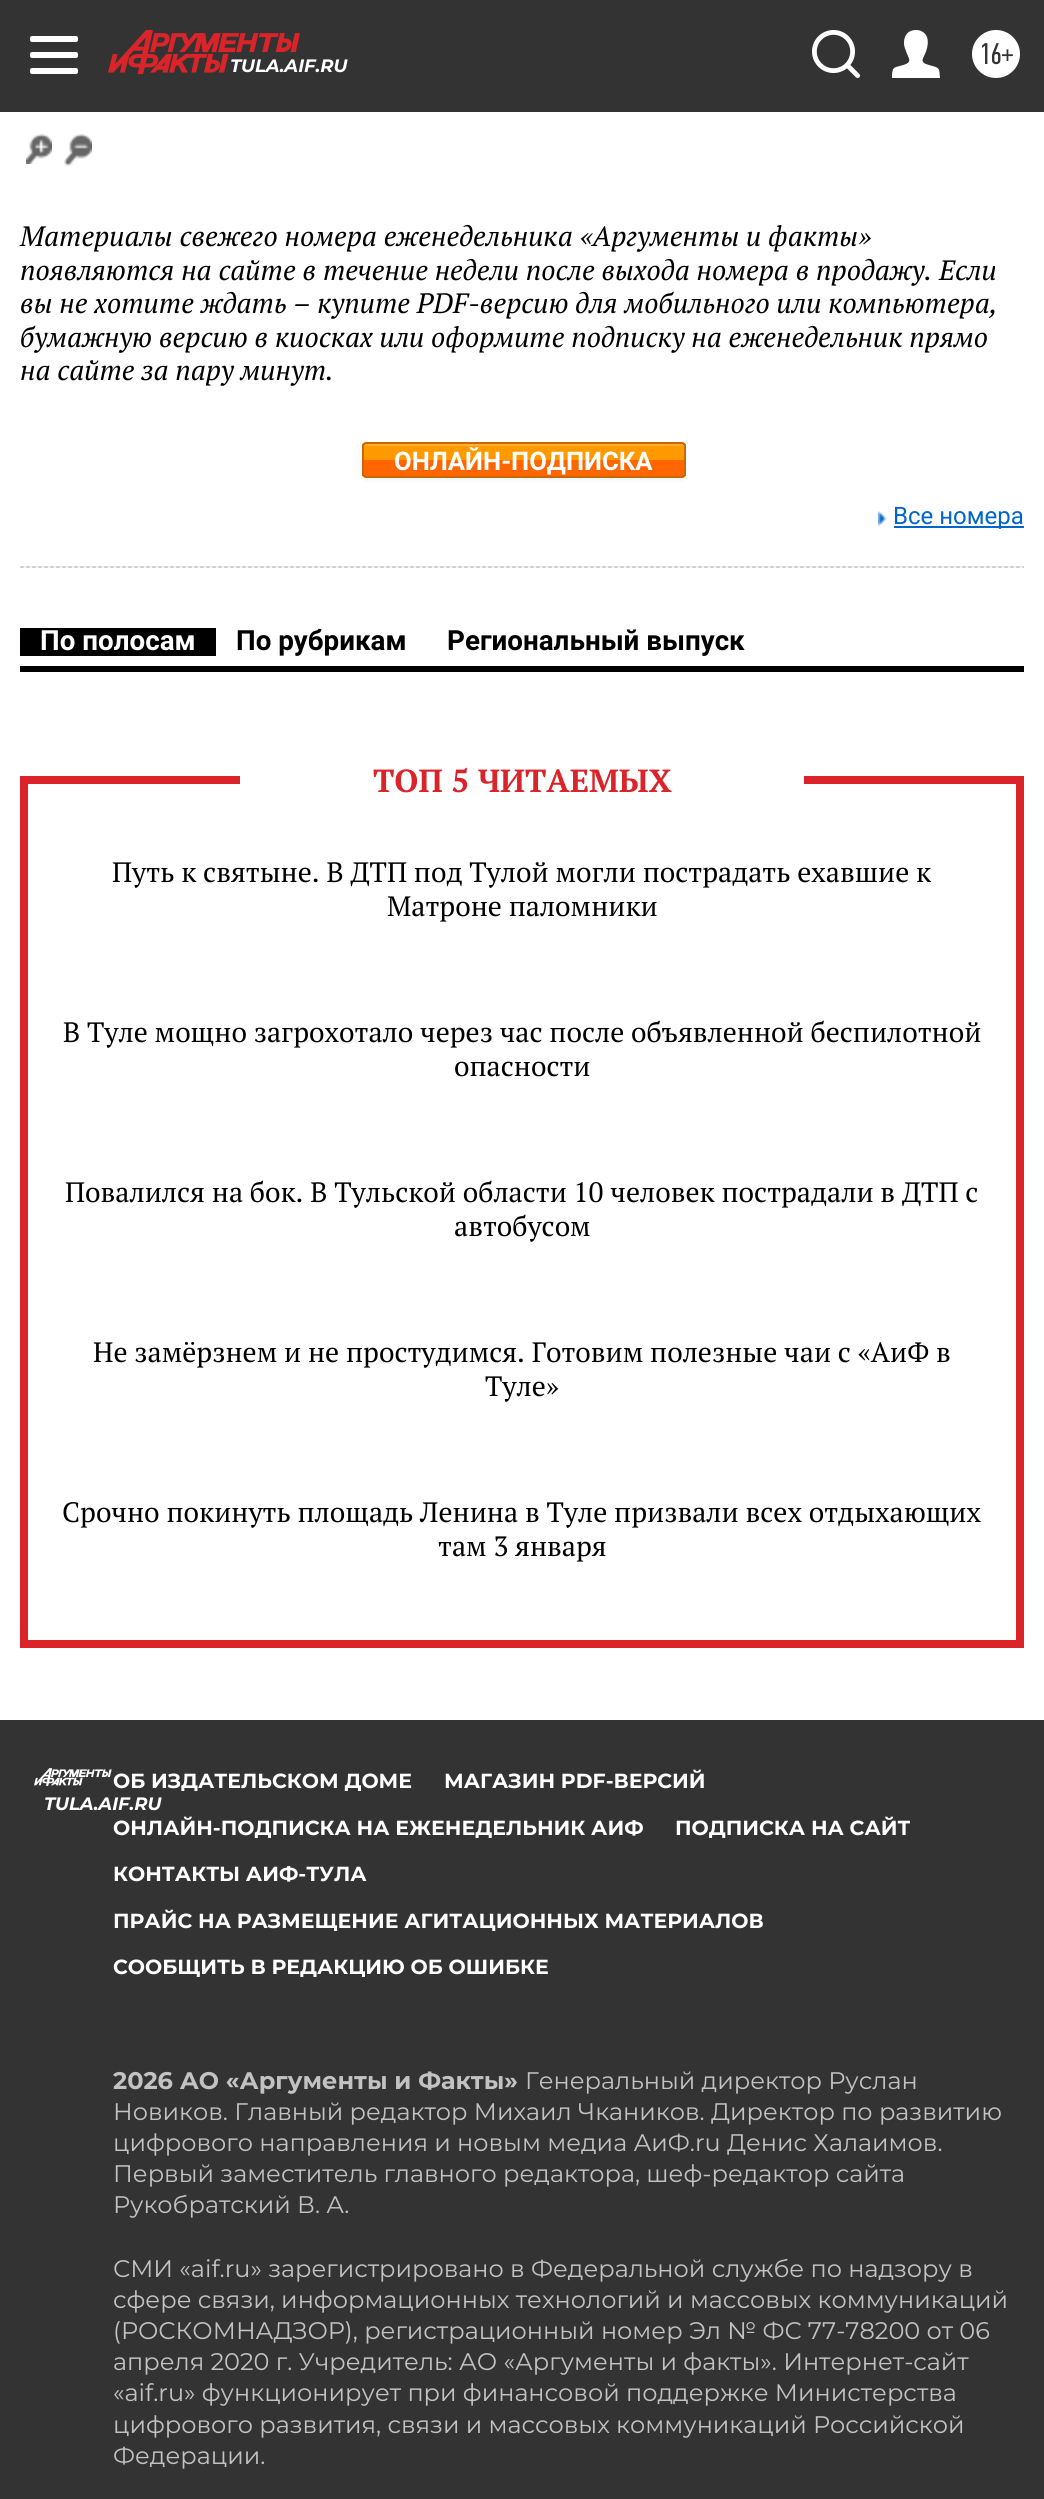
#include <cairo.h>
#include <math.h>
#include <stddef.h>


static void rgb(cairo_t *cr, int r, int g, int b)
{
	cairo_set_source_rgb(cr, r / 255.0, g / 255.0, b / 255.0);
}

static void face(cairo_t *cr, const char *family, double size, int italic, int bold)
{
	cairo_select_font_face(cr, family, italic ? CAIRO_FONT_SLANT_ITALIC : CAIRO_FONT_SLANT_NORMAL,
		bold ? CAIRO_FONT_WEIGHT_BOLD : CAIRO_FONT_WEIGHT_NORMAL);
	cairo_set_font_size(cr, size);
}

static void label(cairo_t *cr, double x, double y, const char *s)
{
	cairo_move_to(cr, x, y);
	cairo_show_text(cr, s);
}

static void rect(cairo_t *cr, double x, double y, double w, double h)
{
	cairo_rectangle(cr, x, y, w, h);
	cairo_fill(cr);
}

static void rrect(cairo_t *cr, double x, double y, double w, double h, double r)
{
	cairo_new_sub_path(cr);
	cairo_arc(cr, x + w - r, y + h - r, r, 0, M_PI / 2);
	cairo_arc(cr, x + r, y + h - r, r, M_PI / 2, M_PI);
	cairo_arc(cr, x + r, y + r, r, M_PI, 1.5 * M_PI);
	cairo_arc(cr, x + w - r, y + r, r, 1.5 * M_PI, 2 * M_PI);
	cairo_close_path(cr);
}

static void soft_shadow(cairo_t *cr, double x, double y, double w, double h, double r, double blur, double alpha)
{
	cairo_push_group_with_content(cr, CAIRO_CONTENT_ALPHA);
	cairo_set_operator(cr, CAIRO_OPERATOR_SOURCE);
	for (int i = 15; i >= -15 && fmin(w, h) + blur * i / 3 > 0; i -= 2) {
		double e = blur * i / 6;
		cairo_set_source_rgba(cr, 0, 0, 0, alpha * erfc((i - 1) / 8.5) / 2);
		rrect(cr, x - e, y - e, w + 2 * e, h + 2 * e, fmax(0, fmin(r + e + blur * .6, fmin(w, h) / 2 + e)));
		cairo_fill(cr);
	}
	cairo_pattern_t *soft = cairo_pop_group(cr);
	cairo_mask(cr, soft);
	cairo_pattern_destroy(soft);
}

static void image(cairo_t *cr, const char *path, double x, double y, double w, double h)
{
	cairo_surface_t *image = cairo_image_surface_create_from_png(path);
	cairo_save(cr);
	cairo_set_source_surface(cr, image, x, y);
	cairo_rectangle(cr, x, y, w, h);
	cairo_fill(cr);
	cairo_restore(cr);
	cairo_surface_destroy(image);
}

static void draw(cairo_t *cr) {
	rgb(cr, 255, 255, 255);
	cairo_paint(cr);
	rgb(cr, 51, 51, 51);
	rect(cr, 0, 0, 1044, 112);
	rgb(cr, 255, 255, 255);
	rrect(cr, 30, 36, 48, 6, 2);
	cairo_fill(cr);
	rrect(cr, 30, 52, 48, 6, 2);
	cairo_fill(cr);
	rrect(cr, 30, 68, 48, 6, 2);
	cairo_fill(cr);
	image(cr, "image0.png", 108, 30, 192, 44);
	face(cr, "Montserrat", 18, 1, 1);
	label(cr, 230, 72, "TULA.AIF.RU");
	image(cr, "image1.png", 812, 30, 48, 48);
	image(cr, "image2.png", 892, 30, 48, 48);
	cairo_arc(cr, 996, 54, 24, 0, 2 * M_PI);
	cairo_fill(cr);
	face(cr, "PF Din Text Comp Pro", 30, 0, 0);
	rgb(cr, 51, 51, 51);
	label(cr, 979, 64, "16+");
	image(cr, "image3.png", 20, 566, 1004, 2);
	image(cr, "image4.png", 26, 134, 26, 30);
	image(cr, "image5.png", 64, 134, 28, 32);
	face(cr, "PT Serif", 28, 1, 0);
	rgb(cr, 0, 0, 0);
	label(cr, 20, 246, "Материалы свежего номера еженедельника «Аргументы и факты»");
	label(cr, 20, 280, "появляются на сайте в течение недели после выхода номера в продажу. Если");
	label(cr, 20, 313, "вы не хотите ждать – купите PDF-версию для мобильного или компьютера,");
	label(cr, 20, 347, "бумажную версию в киосках или оформите подписку на еженедельник прямо");
	label(cr, 20, 380, "на сайте за пару минут.");
	rgb(cr, 0, 0, 0);
	soft_shadow(cr, 362, 444, 324, 36, 4, 2, 0.05);
	rgb(cr, 255, 153, 0);
	rect(cr, 362, 444, 324, 16);
	rgb(cr, 255, 102, 0);
	rect(cr, 362, 460, 324, 16);
	rgb(cr, 255, 173, 51);
	cairo_new_path(cr);
	cairo_move_to(cr, 366, 446);
	cairo_line_to(cr, 682, 446);
	cairo_curve_to(cr, 683, 446, 684, 447, 684, 448);
	cairo_line_to(cr, 684, 446);
	cairo_curve_to(cr, 684, 445, 683, 444, 682, 444);
	cairo_line_to(cr, 366, 444);
	cairo_curve_to(cr, 365, 444, 364, 445, 364, 446);
	cairo_line_to(cr, 364, 448);
	cairo_curve_to(cr, 364, 447, 365, 446, 366, 446);
	cairo_close_path(cr);
	cairo_fill(cr);
	rrect(cr, 363, 443, 322, 34, 3);
	rgb(cr, 204, 102, 0);
	cairo_stroke(cr);
	face(cr, "Roboto", 25.6, 0, 1);
	rgb(cr, 255, 255, 255);
	label(cr, 394, 470, "ОНЛАЙН-ПОДПИСКА");
	image(cr, "image6.png", 878, 511, 9, 16);
	rgb(cr, 0, 102, 204);
	rect(cr, 894, 526, 130, 2);
	face(cr, "Roboto", 24, 0, 0);
	label(cr, 893, 524, "Все номера");
	rgb(cr, 0, 0, 0);
	rect(cr, 20, 666, 1004, 6);
	rect(cr, 20, 628, 196, 28);
	face(cr, "Roboto", 27.75, 0, 1);
	rgb(cr, 255, 255, 255);
	label(cr, 40, 650, "По полосам");
	rgb(cr, 0, 0, 0);
	label(cr, 236, 650, "По рубрикам");
	label(cr, 447, 650, "Региональный выпуск");
	rgb(cr, 218, 36, 41);
	rect(cr, 1016, 776, 8, 872);
	rect(cr, 20, 1640, 1004, 8);
	rect(cr, 20, 776, 8, 872);
	rect(cr, 20, 776, 220, 8);
	face(cr, "PT Serif", 32, 0, 1);
	label(cr, 373, 792, "ТОП 5 ЧИТАЕМЫХ");
	rect(cr, 804, 776, 220, 8);
	face(cr, "PT Serif", 28, 0, 0);
	rgb(cr, 0, 0, 0);
	label(cr, 112, 882, "Путь к святыне. В ДТП под Тулой могли пострадать ехавшие к");
	label(cr, 387, 916, "Матроне паломники");
	label(cr, 63, 1042, "В Туле мощно загрохотало через час после объявленной беспилотной");
	label(cr, 454, 1076, "опасности");
	label(cr, 65, 1202, "Повалился на бок. В Тульской области 10 человек пострадали в ДТП с");
	label(cr, 454, 1236, "автобусом");
	label(cr, 93, 1362, "Не замёрзнем и не простудимся. Готовим полезные чаи с «АиФ в");
	label(cr, 485, 1396, "Туле»");
	label(cr, 62, 1522, "Срочно покинуть площадь Ленина в Туле призвали всех отдыхающих");
	label(cr, 438, 1556, "там 3 января");
	rgb(cr, 51, 51, 51);
	rect(cr, 0, 1720, 1044, 779);
	image(cr, "image7.png", 34, 1768, 78, 18);
	face(cr, "Montserrat", 18, 1, 1);
	rgb(cr, 255, 255, 255);
	label(cr, 44, 1810, "TULA.AIF.RU");
	face(cr, "Montserrat", 20.4, 0, 1);
	label(cr, 113, 1788, "ОБ ИЗДАТЕЛЬСКОМ ДОМЕ");
	label(cr, 444, 1788, "МАГАЗИН PDF-ВЕРСИЙ");
	label(cr, 113, 1835, "ОНЛАЙН-ПОДПИСКА НА ЕЖЕНЕДЕЛЬНИК АИФ");
	label(cr, 675, 1835, "ПОДПИСКА НА САЙТ");
	label(cr, 113, 1881, "КОНТАКТЫ АИФ-ТУЛА");
	label(cr, 113, 1928, "ПРАЙС НА РАЗМЕЩЕНИЕ АГИТАЦИОННЫХ МАТЕРИАЛОВ");
	label(cr, 113, 1974, "СООБЩИТЬ В РЕДАКЦИЮ ОБ ОШИБКЕ");
	face(cr, "Montserrat", 24, 0, 1);
	rgb(cr, 194, 194, 194);
	label(cr, 113, 2089, "2026 АО «Аргументы и Факты»");
	face(cr, "Montserrat", 24, 0, 0);
	label(cr, 525, 2089, "Генеральный директор Руслан");
	label(cr, 113, 2120, "Новиков. Главный редактор Михаил Чкаников. Директор по развитию");
	label(cr, 113, 2151, "цифрового направления и новым медиа АиФ.ru Денис Халаимов.");
	label(cr, 113, 2182, "Первый заместитель главного редактора, шеф-редактор сайта");
	label(cr, 113, 2213, "Рукобратский В. А.");
	label(cr, 113, 2277, "СМИ «aif.ru» зарегистрировано в Федеральной службе по надзору в");
	label(cr, 113, 2308, "сфере связи, информационных технологий и массовых коммуникаций");
	label(cr, 113, 2339, "(РОСКОМНАДЗОР), регистрационный номер Эл № ФС 77-78200 от 06");
	label(cr, 113, 2370, "апреля 2020 г. Учредитель: АО «Аргументы и факты». Интернет-сайт");
	label(cr, 113, 2401, "«aif.ru» функционирует при финансовой поддержке Министерства");
	label(cr, 113, 2433, "цифрового развития, связи и массовых коммуникаций Российской");
	label(cr, 113, 2464, "Федерации.");
}

int main(void) {
	cairo_surface_t *surface = cairo_image_surface_create(CAIRO_FORMAT_RGB24, 1044, 2499);
	cairo_t *cr = cairo_create(surface);
	cairo_font_options_t *options = cairo_font_options_create();
	cairo_font_options_set_hint_metrics(options, CAIRO_HINT_METRICS_OFF);
	cairo_font_options_set_hint_style(options, CAIRO_HINT_STYLE_NONE);
	cairo_set_font_options(cr, options);
	cairo_set_miter_limit(cr, 4);
	draw(cr);
	cairo_surface_write_to_png(surface, "render.png");
	cairo_font_options_destroy(options);
	cairo_destroy(cr);
	cairo_surface_destroy(surface);
	return 0;
}
